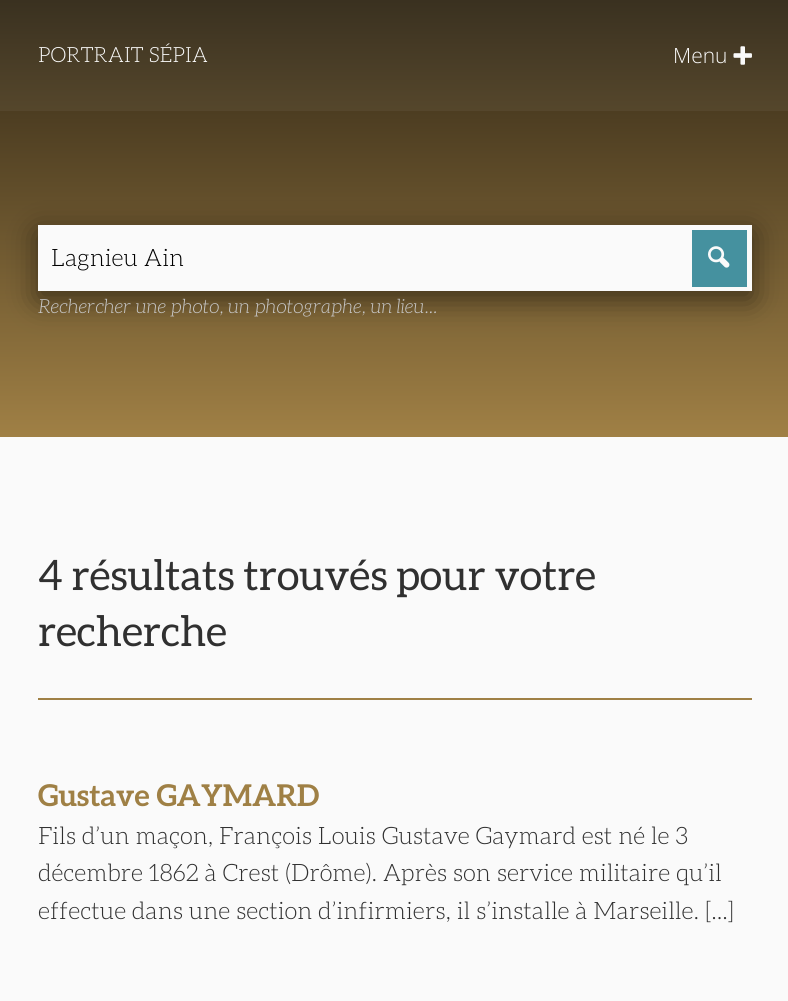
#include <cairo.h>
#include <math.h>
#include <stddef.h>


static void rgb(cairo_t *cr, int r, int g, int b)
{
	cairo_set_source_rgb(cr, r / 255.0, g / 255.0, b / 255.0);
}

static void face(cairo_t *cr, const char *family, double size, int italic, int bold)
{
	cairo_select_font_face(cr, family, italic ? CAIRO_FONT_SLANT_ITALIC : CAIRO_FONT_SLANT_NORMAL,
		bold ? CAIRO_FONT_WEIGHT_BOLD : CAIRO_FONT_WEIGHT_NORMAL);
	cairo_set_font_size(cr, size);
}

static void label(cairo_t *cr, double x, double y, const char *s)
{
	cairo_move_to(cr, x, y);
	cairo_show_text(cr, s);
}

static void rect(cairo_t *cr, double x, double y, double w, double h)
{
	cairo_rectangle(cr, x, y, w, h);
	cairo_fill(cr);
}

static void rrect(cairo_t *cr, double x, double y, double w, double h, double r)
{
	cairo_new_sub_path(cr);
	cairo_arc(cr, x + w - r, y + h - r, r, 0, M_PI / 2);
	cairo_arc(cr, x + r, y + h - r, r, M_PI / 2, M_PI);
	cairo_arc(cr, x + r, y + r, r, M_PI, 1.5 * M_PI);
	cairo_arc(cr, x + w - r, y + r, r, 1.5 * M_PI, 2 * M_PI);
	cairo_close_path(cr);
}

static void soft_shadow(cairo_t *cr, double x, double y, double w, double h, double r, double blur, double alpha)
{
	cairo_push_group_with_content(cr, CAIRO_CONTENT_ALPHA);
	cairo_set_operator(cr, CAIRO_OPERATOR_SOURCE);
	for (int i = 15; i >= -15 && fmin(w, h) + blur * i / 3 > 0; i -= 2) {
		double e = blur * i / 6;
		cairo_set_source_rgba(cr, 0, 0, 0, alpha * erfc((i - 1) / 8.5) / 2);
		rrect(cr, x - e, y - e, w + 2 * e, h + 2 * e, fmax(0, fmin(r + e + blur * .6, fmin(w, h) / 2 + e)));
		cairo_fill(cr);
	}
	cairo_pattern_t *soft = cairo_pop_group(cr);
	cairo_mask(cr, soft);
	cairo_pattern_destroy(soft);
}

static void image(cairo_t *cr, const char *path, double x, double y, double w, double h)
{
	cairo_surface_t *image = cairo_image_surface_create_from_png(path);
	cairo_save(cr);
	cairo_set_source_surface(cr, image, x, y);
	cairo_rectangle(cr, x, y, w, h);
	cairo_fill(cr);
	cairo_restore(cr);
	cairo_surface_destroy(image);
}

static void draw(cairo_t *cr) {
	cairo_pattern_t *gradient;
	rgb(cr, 250, 250, 250);
	cairo_paint(cr);
	gradient = cairo_pattern_create_linear(395, 0, 395, 437);
	cairo_pattern_add_color_stop_rgba(gradient, 0, 0.227, 0.192, 0.125, 1);
	cairo_pattern_add_color_stop_rgba(gradient, 1, 0.647, 0.525, 0.306, 1);
	cairo_set_source(cr, gradient);
	cairo_pattern_destroy(gradient);
	rect(cr, 0, 0, 788, 111);
	face(cr, "Aleo Light", 21, 0, 0);
	rgb(cr, 250, 250, 250);
	label(cr, 38, 62, "PORTRAIT SÉPIA");
	face(cr, "Open Sans Light", 21, 0, 0);
	label(cr, 673, 63, "Menu");
	image(cr, "image0.png", 733, 46, 19, 19);
	gradient = cairo_pattern_create_linear(395, 0, 395, 437);
	cairo_pattern_add_color_stop_rgba(gradient, 0, 0.188, 0.149, 0.082, 1);
	cairo_pattern_add_color_stop_rgba(gradient, 1, 0.627, 0.502, 0.271, 1);
	cairo_set_source(cr, gradient);
	cairo_pattern_destroy(gradient);
	rect(cr, 0, 111, 788, 326);
	rgb(cr, 0, 0, 0);
	soft_shadow(cr, 38, 233, 714, 66, 0, 15, 0.5);
	rgb(cr, 250, 250, 250);
	rect(cr, 38, 225, 714, 66);
	face(cr, "Aleo Light", 24, 0, 0);
	rgb(cr, 0, 0, 0);
	label(cr, 51, 266, "Lagnieu Ain");
	rgb(cr, 69, 145, 159);
	rect(cr, 692, 230, 55, 57);
	image(cr, "image1.png", 708, 246, 22, 22);
	face(cr, "Aleo Light", 19.5, 1, 0);
	rgb(cr, 199, 199, 199);
	label(cr, 38, 313, "Rechercher une photo, un photographe, un lieu...");
	face(cr, "Aleo", 42, 0, 0);
	rgb(cr, 48, 48, 48);
	label(cr, 38, 590, "4 résultats trouvés pour votre");
	label(cr, 38, 646, "recherche");
	rgb(cr, 159, 128, 69);
	rect(cr, 38, 698, 714, 2);
	face(cr, "Aleo", 30, 0, 1);
	label(cr, 38, 806, "Gustave GAYMARD");
	face(cr, "Aleo Light", 24, 0, 0);
	rgb(cr, 48, 48, 48);
	label(cr, 38, 844, "Fils d’un maçon, François Louis Gustave Gaymard est né le 3");
	label(cr, 38, 881, "décembre 1862 à Crest (Drôme). Après son service militaire qu’il");
	label(cr, 38, 919, "effectue dans une section d’infirmiers, il s’installe à Marseille. [...]");
}

int main(void) {
	cairo_surface_t *surface = cairo_image_surface_create(CAIRO_FORMAT_RGB24, 788, 1001);
	cairo_t *cr = cairo_create(surface);
	cairo_font_options_t *options = cairo_font_options_create();
	cairo_font_options_set_hint_metrics(options, CAIRO_HINT_METRICS_OFF);
	cairo_font_options_set_hint_style(options, CAIRO_HINT_STYLE_NONE);
	cairo_set_font_options(cr, options);
	cairo_set_miter_limit(cr, 4);
	draw(cr);
	cairo_surface_write_to_png(surface, "render.png");
	cairo_font_options_destroy(options);
	cairo_destroy(cr);
	cairo_surface_destroy(surface);
	return 0;
}
